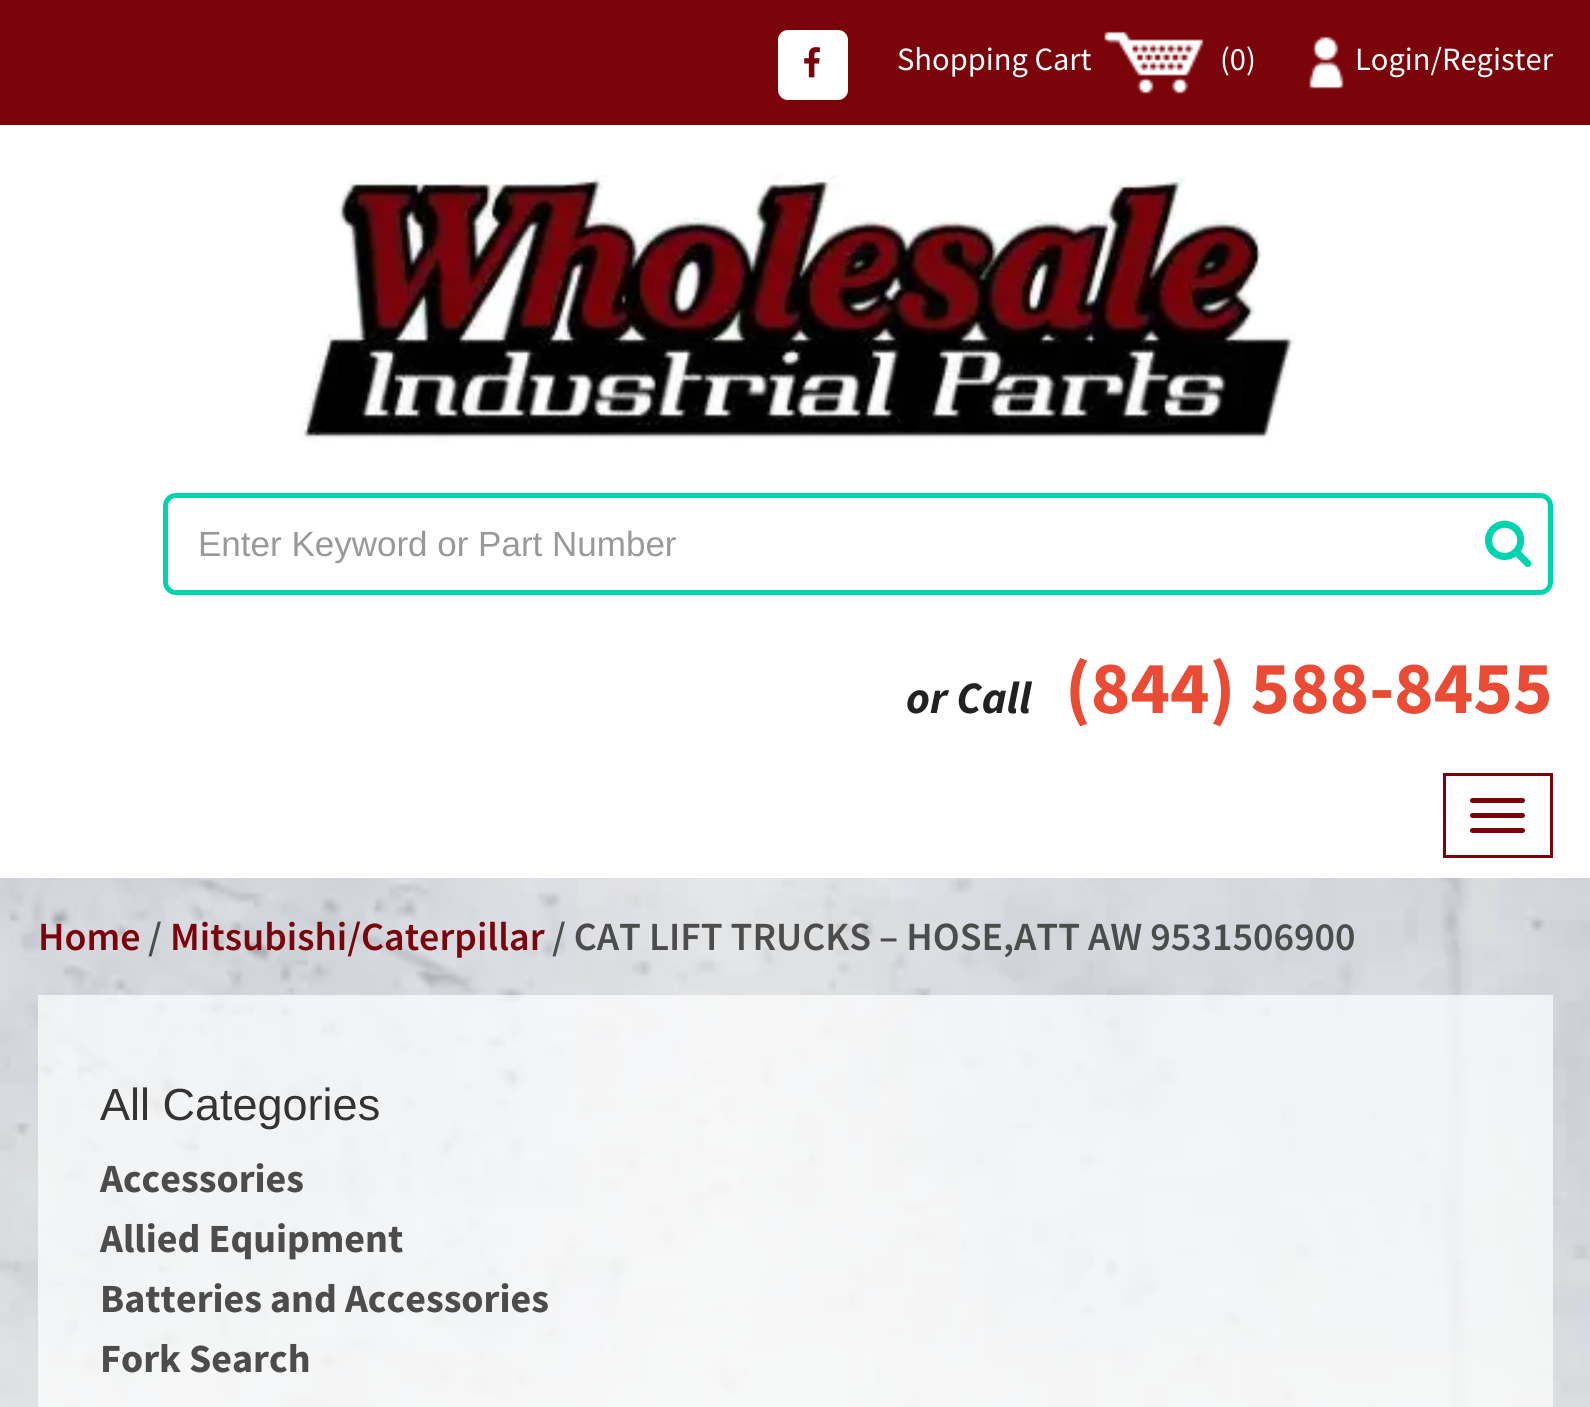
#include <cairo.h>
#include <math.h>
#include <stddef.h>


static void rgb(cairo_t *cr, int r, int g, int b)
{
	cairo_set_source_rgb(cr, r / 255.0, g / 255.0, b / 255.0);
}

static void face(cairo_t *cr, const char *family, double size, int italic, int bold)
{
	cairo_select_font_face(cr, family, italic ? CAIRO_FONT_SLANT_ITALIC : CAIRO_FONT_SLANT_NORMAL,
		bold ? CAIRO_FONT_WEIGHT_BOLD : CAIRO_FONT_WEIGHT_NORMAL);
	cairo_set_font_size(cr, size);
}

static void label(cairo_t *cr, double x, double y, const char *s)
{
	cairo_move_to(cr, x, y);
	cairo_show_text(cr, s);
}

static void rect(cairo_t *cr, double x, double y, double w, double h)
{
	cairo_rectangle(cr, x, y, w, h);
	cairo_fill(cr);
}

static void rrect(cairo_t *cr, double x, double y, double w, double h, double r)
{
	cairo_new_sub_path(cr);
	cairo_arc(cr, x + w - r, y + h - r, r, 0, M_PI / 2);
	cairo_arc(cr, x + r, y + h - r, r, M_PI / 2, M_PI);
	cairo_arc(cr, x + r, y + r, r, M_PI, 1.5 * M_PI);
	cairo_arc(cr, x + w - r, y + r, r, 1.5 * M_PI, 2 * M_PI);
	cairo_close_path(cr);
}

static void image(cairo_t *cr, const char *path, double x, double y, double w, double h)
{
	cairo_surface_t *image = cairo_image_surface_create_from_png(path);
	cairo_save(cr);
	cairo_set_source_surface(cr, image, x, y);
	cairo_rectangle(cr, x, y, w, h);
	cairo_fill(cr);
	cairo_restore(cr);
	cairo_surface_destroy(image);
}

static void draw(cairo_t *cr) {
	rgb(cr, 255, 255, 255);
	cairo_paint(cr);
	image(cr, "image0.png", 0, 878, 1590, 529);
	rgb(cr, 122, 4, 10);
	rect(cr, 0, 0, 1590, 125);
	rgb(cr, 255, 255, 255);
	rrect(cr, 778, 30, 70, 70, 10);
	cairo_fill(cr);
	image(cr, "image1.png", 804, 47, 16, 31);
	face(cr, "Source Sans Pro", 32.5, 0, 0);
	label(cr, 897, 70, "Shopping Cart");
	image(cr, "image2.png", 1104, 31, 100, 63);
	label(cr, 1220, 70, "(0)");
	image(cr, "image3.png", 1309, 36, 35, 53);
	label(cr, 1355, 70, "Login/Register");
	image(cr, "image4.png", 299, 175, 996, 267);
	rrect(cr, 165.5, 495.5, 1385, 97, 10.5);
	rgb(cr, 0, 211, 175);
	cairo_set_line_width(cr, 5);
	cairo_stroke(cr);
	rgb(cr, 255, 255, 255);
	cairo_new_path(cr);
	cairo_move_to(cr, 178, 498);
	cairo_line_to(cr, 1473, 498);
	cairo_line_to(cr, 1473, 590);
	cairo_line_to(cr, 178, 590);
	cairo_curve_to(cr, 172.5, 590, 168, 585.5, 168, 580);
	cairo_line_to(cr, 168, 508);
	cairo_curve_to(cr, 168, 502.5, 172.5, 498, 178, 498);
	cairo_close_path(cr);
	cairo_fill(cr);
	face(cr, "Liberation Sans", 35, 0, 0);
	rgb(cr, 153, 153, 153);
	label(cr, 198, 556, "Enter Keyword or Part Number");
	rgb(cr, 255, 255, 255);
	cairo_new_path(cr);
	cairo_move_to(cr, 1470, 498);
	cairo_line_to(cr, 1538, 498);
	cairo_curve_to(cr, 1543.5, 498, 1548, 502.5, 1548, 508);
	cairo_line_to(cr, 1548, 580);
	cairo_curve_to(cr, 1548, 585.5, 1543.5, 590, 1538, 590);
	cairo_line_to(cr, 1470, 590);
	cairo_close_path(cr);
	cairo_fill(cr);
	image(cr, "image5.png", 1485, 520, 47, 48);
	face(cr, "Source Sans Pro", 45, 1, 1);
	rgb(cr, 34, 34, 34);
	label(cr, 906, 713, "or Call");
	face(cr, "Source Sans Pro", 75, 0, 1);
	rgb(cr, 233, 75, 53);
	label(cr, 1065, 713, "(844) 588-8455");
	cairo_rectangle(cr, 1444.5, 774.5, 107, 82);
	rgb(cr, 122, 4, 10);
	cairo_set_line_width(cr, 3);
	cairo_stroke(cr);
	rrect(cr, 1470, 798, 55, 5, 2.5);
	cairo_fill(cr);
	rrect(cr, 1470, 813, 55, 5, 2.5);
	cairo_fill(cr);
	rrect(cr, 1470, 828, 55, 5, 2.5);
	cairo_fill(cr);
	face(cr, "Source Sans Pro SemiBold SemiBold", 40, 0, 0);
	label(cr, 38, 950, "Home");
	rgb(cr, 76, 76, 76);
	label(cr, 148, 950, "/");
	rgb(cr, 122, 4, 10);
	label(cr, 170, 950, "Mitsubishi/Caterpillar");
	rgb(cr, 76, 76, 76);
	label(cr, 552, 950, "/ CAT LIFT TRUCKS – HOSE,ATT AW 9531506900");
	cairo_set_source_rgba(cr, 1, 1, 1, 0.7);
	rect(cr, 38, 995, 1515, 412);
	face(cr, "Liberation Sans", 45, 0, 0);
	rgb(cr, 51, 51, 51);
	label(cr, 100, 1120, "All Categories");
	face(cr, "Source Sans Pro", 40, 0, 1);
	rgb(cr, 76, 76, 76);
	label(cr, 100, 1192, "Accessories");
	label(cr, 100, 1252, "Allied Equipment");
	label(cr, 100, 1312, "Batteries and Accessories");
	label(cr, 100, 1372, "Fork Search");
}

int main(void) {
	cairo_surface_t *surface = cairo_image_surface_create(CAIRO_FORMAT_RGB24, 1590, 1407);
	cairo_t *cr = cairo_create(surface);
	cairo_font_options_t *options = cairo_font_options_create();
	cairo_font_options_set_hint_metrics(options, CAIRO_HINT_METRICS_OFF);
	cairo_font_options_set_hint_style(options, CAIRO_HINT_STYLE_NONE);
	cairo_set_font_options(cr, options);
	cairo_set_miter_limit(cr, 4);
	draw(cr);
	cairo_surface_write_to_png(surface, "render.png");
	cairo_font_options_destroy(options);
	cairo_destroy(cr);
	cairo_surface_destroy(surface);
	return 0;
}
